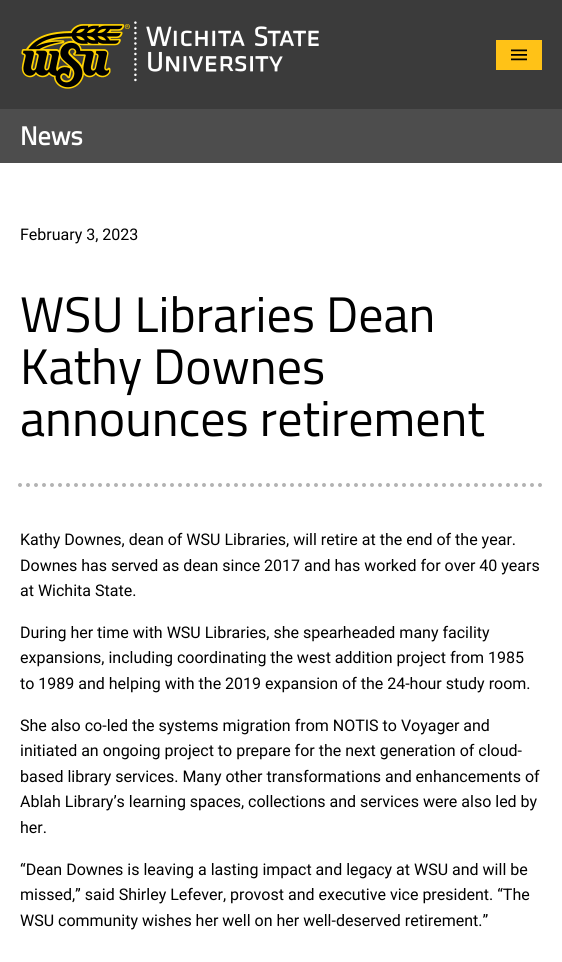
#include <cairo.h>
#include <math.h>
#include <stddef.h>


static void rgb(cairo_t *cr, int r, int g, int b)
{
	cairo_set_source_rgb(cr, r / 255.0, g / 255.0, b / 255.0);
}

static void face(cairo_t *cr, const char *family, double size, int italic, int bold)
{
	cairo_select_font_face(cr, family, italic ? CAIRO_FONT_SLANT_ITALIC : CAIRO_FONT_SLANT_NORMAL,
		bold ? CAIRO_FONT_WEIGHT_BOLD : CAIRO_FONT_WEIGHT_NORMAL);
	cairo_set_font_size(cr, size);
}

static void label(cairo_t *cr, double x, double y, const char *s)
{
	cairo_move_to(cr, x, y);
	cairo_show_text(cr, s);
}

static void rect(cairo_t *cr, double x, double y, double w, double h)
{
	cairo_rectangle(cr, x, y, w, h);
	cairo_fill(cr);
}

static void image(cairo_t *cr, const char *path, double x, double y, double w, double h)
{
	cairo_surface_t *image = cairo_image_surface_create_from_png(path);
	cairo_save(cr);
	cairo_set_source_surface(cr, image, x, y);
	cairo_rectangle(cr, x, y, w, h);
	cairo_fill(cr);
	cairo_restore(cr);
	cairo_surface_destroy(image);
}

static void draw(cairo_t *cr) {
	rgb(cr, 255, 255, 255);
	cairo_paint(cr);
	rgb(cr, 59, 59, 59);
	rect(cr, 0, 0, 562, 109);
	image(cr, "image0.png", 21, 21, 298, 68);
	rgb(cr, 255, 194, 23);
	rect(cr, 496, 40, 46, 30);
	image(cr, "image1.png", 511, 49, 16, 12);
	rgb(cr, 77, 77, 77);
	rect(cr, 0, 109, 562, 54);
	face(cr, "Titillium Web", 26, 0, 1);
	rgb(cr, 255, 255, 255);
	label(cr, 20, 145, "News");
	cairo_new_path(cr);
	cairo_move_to(cr, 20, 485);
	cairo_line_to(cr, 542, 485);
	rgb(cr, 179, 179, 179);
	cairo_set_line_width(cr, 4);
	cairo_set_line_cap(cr, CAIRO_LINE_CAP_ROUND);
	cairo_set_dash(cr, (double[]){0, 8}, 2, 0);
	cairo_stroke(cr);
	face(cr, "Roboto", 16, 0, 0);
	rgb(cr, 0, 0, 0);
	label(cr, 20, 240, "February 3, 2023");
	face(cr, "Titillium Web", 50, 0, 0);
	label(cr, 20, 332, "WSU Libraries Dean");
	label(cr, 20, 384, "Kathy Downes");
	label(cr, 20, 436, "announces retirement");
	face(cr, "Roboto", 16, 0, 0);
	label(cr, 20, 545, "Kathy Downes, dean of WSU Libraries, will retire at the end of the year.");
	label(cr, 20, 571, "Downes has served as dean since 2017 and has worked for over 40 years");
	label(cr, 20, 596, "at Wichita State.");
	label(cr, 20, 638, "During her time with WSU Libraries, she spearheaded many facility");
	label(cr, 20, 663, "expansions, including coordinating the west addition project from 1985");
	label(cr, 20, 689, "to 1989 and helping with the 2019 expansion of the 24-hour study room.");
	label(cr, 20, 731, "She also co-led the systems migration from NOTIS to Voyager and");
	label(cr, 20, 756, "initiated an ongoing project to prepare for the next generation of cloud-");
	label(cr, 20, 782, "based library services. Many other transformations and enhancements of");
	label(cr, 20, 807, "Ablah Library’s learning spaces, collections and services were also led by");
	label(cr, 20, 833, "her.");
	label(cr, 20, 875, "“Dean Downes is leaving a lasting impact and legacy at WSU and will be");
	label(cr, 20, 900, "missed,” said Shirley Lefever, provost and executive vice president. “The");
	label(cr, 20, 926, "WSU community wishes her well on her well-deserved retirement.”");
}

int main(void) {
	cairo_surface_t *surface = cairo_image_surface_create(CAIRO_FORMAT_RGB24, 562, 962);
	cairo_t *cr = cairo_create(surface);
	cairo_font_options_t *options = cairo_font_options_create();
	cairo_font_options_set_hint_metrics(options, CAIRO_HINT_METRICS_OFF);
	cairo_font_options_set_hint_style(options, CAIRO_HINT_STYLE_NONE);
	cairo_set_font_options(cr, options);
	cairo_set_miter_limit(cr, 4);
	draw(cr);
	cairo_surface_write_to_png(surface, "render.png");
	cairo_font_options_destroy(options);
	cairo_destroy(cr);
	cairo_surface_destroy(surface);
	return 0;
}
